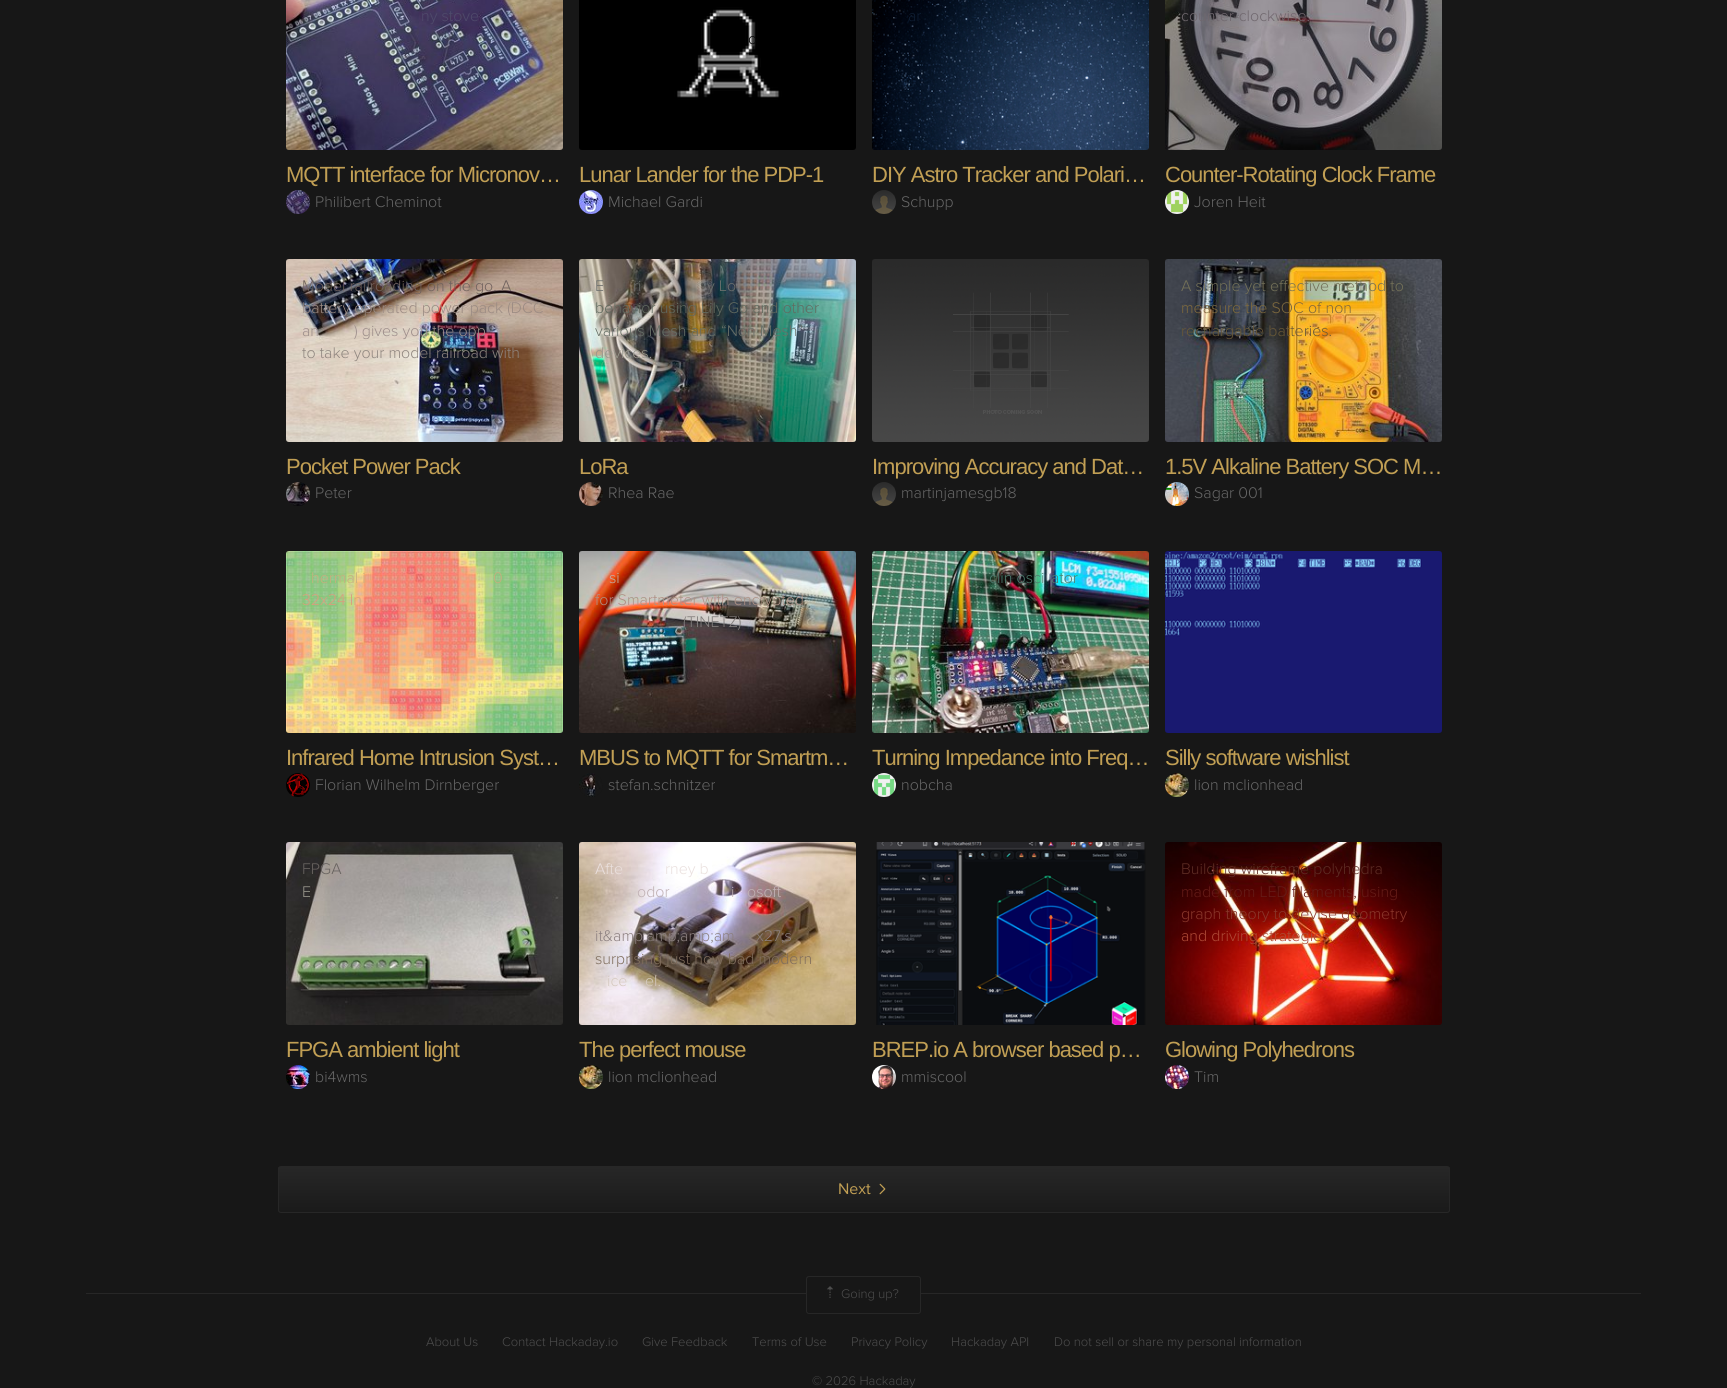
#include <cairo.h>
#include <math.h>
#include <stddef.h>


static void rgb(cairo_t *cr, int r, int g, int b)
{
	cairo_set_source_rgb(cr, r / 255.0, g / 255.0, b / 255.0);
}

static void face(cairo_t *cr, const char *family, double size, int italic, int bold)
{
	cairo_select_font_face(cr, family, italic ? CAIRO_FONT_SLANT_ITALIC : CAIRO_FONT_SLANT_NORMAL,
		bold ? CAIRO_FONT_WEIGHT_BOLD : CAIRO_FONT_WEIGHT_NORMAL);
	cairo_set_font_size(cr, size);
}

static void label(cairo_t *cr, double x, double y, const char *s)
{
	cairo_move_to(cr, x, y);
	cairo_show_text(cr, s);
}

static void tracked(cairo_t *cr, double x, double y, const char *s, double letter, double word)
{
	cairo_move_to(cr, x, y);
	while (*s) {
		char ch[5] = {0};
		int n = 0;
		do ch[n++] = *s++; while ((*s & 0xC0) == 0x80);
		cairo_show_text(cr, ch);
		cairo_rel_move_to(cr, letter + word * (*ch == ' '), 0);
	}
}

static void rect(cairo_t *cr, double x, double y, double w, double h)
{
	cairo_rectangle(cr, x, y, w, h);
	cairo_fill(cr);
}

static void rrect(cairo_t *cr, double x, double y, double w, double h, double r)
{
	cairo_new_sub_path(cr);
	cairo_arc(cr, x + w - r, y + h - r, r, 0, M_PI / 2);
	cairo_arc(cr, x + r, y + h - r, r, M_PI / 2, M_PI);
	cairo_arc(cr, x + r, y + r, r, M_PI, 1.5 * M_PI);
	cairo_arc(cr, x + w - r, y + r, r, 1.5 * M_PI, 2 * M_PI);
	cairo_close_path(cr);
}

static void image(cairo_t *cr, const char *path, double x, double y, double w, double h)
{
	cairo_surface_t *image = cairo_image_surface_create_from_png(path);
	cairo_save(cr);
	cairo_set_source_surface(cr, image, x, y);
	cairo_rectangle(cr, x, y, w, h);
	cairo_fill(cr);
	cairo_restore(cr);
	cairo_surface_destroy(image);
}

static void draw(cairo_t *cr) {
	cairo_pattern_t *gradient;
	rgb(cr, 23, 23, 23);
	cairo_paint(cr);
	image(cr, "image0.png", 286, 0, 277, 150);
	face(cr, "Proxima Nova Light", 16, 0, 0);
	rgb(cr, 79, 75, 107);
	label(cr, 421, 21, "ny stove");
	face(cr, "Liberation Sans", 22, 0, 0);
	rgb(cr, 193, 159, 84);
	tracked(cr, 286, 182, "MQTT interface for Micronov…", -1, 0);
	image(cr, "image1.png", 286, 190, 24, 24);
	face(cr, "Proxima Nova Light", 16, 0, 0);
	rgb(cr, 103, 103, 103);
	label(cr, 315, 207, "Philibert Cheminot");
	image(cr, "image2.png", 579, 0, 277, 150);
	rgb(cr, 8, 8, 8);
	label(cr, 748, 44, "o");
	face(cr, "Liberation Sans", 22, 0, 0);
	rgb(cr, 193, 159, 84);
	tracked(cr, 579, 182, "Lunar Lander for the PDP-1", -1, 0);
	image(cr, "image3.png", 579, 190, 24, 24);
	face(cr, "Proxima Nova Light", 16, 0, 0);
	rgb(cr, 103, 103, 103);
	label(cr, 608, 207, "Michael Gardi");
	image(cr, "image4.png", 872, 0, 277, 150);
	rgb(cr, 14, 29, 50);
	label(cr, 908, 21, "ar");
	face(cr, "Liberation Sans", 22, 0, 0);
	rgb(cr, 193, 159, 84);
	tracked(cr, 872, 182, "DIY Astro Tracker and Polari…", -1, 0);
	image(cr, "image5.png", 872, 190, 24, 24);
	face(cr, "Proxima Nova Light", 16, 0, 0);
	rgb(cr, 103, 103, 103);
	label(cr, 901, 207, "Schupp");
	image(cr, "image6.png", 1165, 0, 277, 150);
	rgb(cr, 112, 104, 110);
	label(cr, 1181, 21, "counter-clockwise.");
	face(cr, "Liberation Sans", 22, 0, 0);
	rgb(cr, 193, 159, 84);
	tracked(cr, 1165, 182, "Counter-Rotating Clock Frame", -1, 0);
	image(cr, "image7.png", 1165, 190, 24, 24);
	face(cr, "Proxima Nova Light", 16, 0, 0);
	rgb(cr, 103, 103, 103);
	label(cr, 1194, 207, "Joren Heit");
	image(cr, "image8.png", 286, 259, 277, 183);
	rgb(cr, 113, 99, 95);
	label(cr, 302, 291, "Model railroading on the go. A");
	rgb(cr, 155, 139, 131);
	label(cr, 302, 313, "battery operated power pack (DCC");
	rgb(cr, 157, 142, 139);
	label(cr, 302, 336, "an");
	label(cr, 354, 336, ") gives you the opp");
	rgb(cr, 143, 134, 127);
	label(cr, 302, 358, "to take your model railroad with");
	face(cr, "Liberation Sans", 22, 0, 0);
	rgb(cr, 193, 159, 84);
	tracked(cr, 286, 474, "Pocket Power Pack", -1, 0);
	image(cr, "image9.png", 286, 482, 24, 24);
	face(cr, "Proxima Nova Light", 16, 0, 0);
	rgb(cr, 103, 103, 103);
	label(cr, 315, 498, "Peter");
	image(cr, "image10.png", 579, 259, 277, 183);
	rgb(cr, 109, 112, 110);
	label(cr, 595, 291, "E");
	label(cr, 633, 291, "ri");
	label(cr, 707, 291, "y Lo");
	rgb(cr, 97, 106, 95);
	label(cr, 595, 313, "behavior using Lily Go and other");
	rgb(cr, 103, 111, 103);
	label(cr, 595, 336, "various Mesh and “Non Mesh”");
	rgb(cr, 152, 151, 140);
	label(cr, 595, 358, "devices.");
	face(cr, "Liberation Sans", 22, 0, 0);
	rgb(cr, 193, 159, 84);
	tracked(cr, 579, 474, "LoRa", -1, 0);
	image(cr, "image11.png", 579, 482, 24, 24);
	face(cr, "Proxima Nova Light", 16, 0, 0);
	rgb(cr, 103, 103, 103);
	label(cr, 608, 498, "Rhea Rae");
	image(cr, "image12.png", 872, 259, 277, 183);
	face(cr, "Liberation Sans", 22, 0, 0);
	rgb(cr, 193, 159, 84);
	tracked(cr, 872, 474, "Improving Accuracy and Dat…", -1, 0);
	image(cr, "image5.png", 872, 482, 24, 24);
	face(cr, "Proxima Nova Light", 16, 0, 0);
	rgb(cr, 103, 103, 103);
	label(cr, 901, 498, "martinjamesgb18");
	image(cr, "image13.png", 1165, 259, 277, 183);
	rgb(cr, 116, 113, 88);
	label(cr, 1181, 291, "A simple yet effective method to");
	rgb(cr, 126, 105, 61);
	label(cr, 1181, 313, "measure the SOC of non");
	rgb(cr, 105, 88, 55);
	label(cr, 1181, 336, "rechargable batteries.");
	face(cr, "Liberation Sans", 22, 0, 0);
	rgb(cr, 193, 159, 84);
	tracked(cr, 1165, 474, "1.5V Alkaline Battery SOC M…", -1, 0);
	image(cr, "image14.png", 1165, 482, 24, 24);
	face(cr, "Proxima Nova Light", 16, 0, 0);
	rgb(cr, 103, 103, 103);
	label(cr, 1194, 498, "Sagar 001");
	image(cr, "image15.png", 286, 551, 277, 182);
	rgb(cr, 199, 174, 127);
	label(cr, 311, 583, "hermal i");
	label(cr, 493, 583, "0");
	rgb(cr, 216, 158, 125);
	label(cr, 302, 605, "32x24 In");
	face(cr, "Liberation Sans", 22, 0, 0);
	rgb(cr, 193, 159, 84);
	tracked(cr, 286, 765, "Infrared Home Intrusion Syst…", -1, 0);
	image(cr, "image16.png", 286, 773, 24, 24);
	face(cr, "Proxima Nova Light", 16, 0, 0);
	rgb(cr, 103, 103, 103);
	label(cr, 315, 790, "Florian Wilhelm Dirnberger");
	image(cr, "image17.png", 579, 551, 277, 182);
	rgb(cr, 191, 177, 172);
	label(cr, 609, 583, "si");
	rgb(cr, 173, 145, 133);
	label(cr, 595, 605, "for Smartmeter with encrypted");
	rgb(cr, 130, 126, 125);
	label(cr, 683, 627, "(TINETZ)");
	face(cr, "Liberation Sans", 22, 0, 0);
	rgb(cr, 193, 159, 84);
	tracked(cr, 579, 765, "MBUS to MQTT for Smartm…", -1, 0);
	image(cr, "image18.png", 579, 773, 24, 24);
	face(cr, "Proxima Nova Light", 16, 0, 0);
	rgb(cr, 103, 103, 103);
	label(cr, 608, 790, "stefan.schnitzer");
	image(cr, "image19.png", 872, 551, 277, 182);
	rgb(cr, 78, 126, 112);
	label(cr, 989, 583, "clin osci");
	label(cr, 1051, 583, "ator");
	face(cr, "Liberation Sans", 22, 0, 0);
	rgb(cr, 193, 159, 84);
	tracked(cr, 872, 765, "Turning Impedance into Freq…", -1, 0);
	image(cr, "image20.png", 872, 773, 24, 24);
	face(cr, "Proxima Nova Light", 16, 0, 0);
	rgb(cr, 103, 103, 103);
	label(cr, 901, 790, "nobcha");
	image(cr, "image21.png", 1165, 551, 277, 182);
	face(cr, "Liberation Sans", 22, 0, 0);
	rgb(cr, 193, 159, 84);
	tracked(cr, 1165, 765, "Silly software wishlist", -1, 0);
	image(cr, "image22.png", 1165, 773, 24, 24);
	face(cr, "Proxima Nova Light", 16, 0, 0);
	rgb(cr, 103, 103, 103);
	label(cr, 1194, 790, "lion mclionhead");
	image(cr, "image23.png", 286, 842, 277, 183);
	rgb(cr, 104, 99, 96);
	label(cr, 302, 874, "FPGA");
	rgb(cr, 152, 151, 140);
	label(cr, 302, 897, "E");
	face(cr, "Liberation Sans", 22, 0, 0);
	rgb(cr, 193, 159, 84);
	tracked(cr, 286, 1057, "FPGA ambient light", -1, 0);
	image(cr, "image24.png", 286, 1065, 24, 24);
	face(cr, "Proxima Nova Light", 16, 0, 0);
	rgb(cr, 103, 103, 103);
	label(cr, 315, 1082, "bi4wms");
	image(cr, "image25.png", 579, 842, 277, 183);
	rgb(cr, 234, 224, 222);
	label(cr, 595, 874, "Afte");
	label(cr, 665, 874, "rney b");
	rgb(cr, 192, 177, 180);
	label(cr, 637, 897, "odor");
	label(cr, 731, 897, "i");
	label(cr, 747, 897, "osoft");
	rgb(cr, 140, 128, 128);
	label(cr, 595, 941, "it&amp;amp;amp;am");
	label(cr, 756, 941, "x27;s");
	rgb(cr, 127, 109, 92);
	label(cr, 595, 964, "surprising just how bad modern");
	rgb(cr, 213, 201, 191);
	label(cr, 607, 986, "ice");
	label(cr, 645, 986, "el.");
	face(cr, "Liberation Sans", 22, 0, 0);
	rgb(cr, 193, 159, 84);
	tracked(cr, 579, 1057, "The perfect mouse", -1, 0);
	image(cr, "image22.png", 579, 1065, 24, 24);
	face(cr, "Proxima Nova Light", 16, 0, 0);
	rgb(cr, 103, 103, 103);
	label(cr, 608, 1082, "lion mclionhead");
	image(cr, "image26.png", 876, 842, 270, 183);
	face(cr, "Liberation Sans", 22, 0, 0);
	rgb(cr, 193, 159, 84);
	tracked(cr, 872, 1057, "BREP.io A browser based p…", -1, 0);
	image(cr, "image27.png", 872, 1065, 24, 24);
	face(cr, "Proxima Nova Light", 16, 0, 0);
	rgb(cr, 103, 103, 103);
	label(cr, 901, 1082, "mmiscool");
	image(cr, "image28.png", 1165, 842, 277, 183);
	rgb(cr, 94, 44, 36);
	label(cr, 1181, 874, "Building wireframe polyhedra");
	rgb(cr, 100, 27, 23);
	label(cr, 1181, 897, "made from LED filaments, using");
	rgb(cr, 138, 55, 43);
	label(cr, 1181, 919, "graph theory to devise geometry");
	rgb(cr, 175, 74, 54);
	label(cr, 1181, 941, "and driving strategies.");
	face(cr, "Liberation Sans", 22, 0, 0);
	rgb(cr, 193, 159, 84);
	tracked(cr, 1165, 1057, "Glowing Polyhedrons", -1, 0);
	image(cr, "image29.png", 1165, 1065, 24, 24);
	face(cr, "Proxima Nova Light", 16, 0, 0);
	rgb(cr, 103, 103, 103);
	label(cr, 1194, 1082, "Tim");
	cairo_save(cr);
	rrect(cr, 278, 1166, 1172, 47, 3);
	cairo_clip(cr);
	gradient = cairo_pattern_create_linear(864, 1167, 864, 1212);
	cairo_pattern_add_color_stop_rgba(gradient, 0, 0.153, 0.153, 0.153, 1);
	cairo_pattern_add_color_stop_rgba(gradient, 1, 0.102, 0.102, 0.102, 1);
	cairo_set_source(cr, gradient);
	cairo_pattern_destroy(gradient);
	rect(cr, 278, 1167, 1172, 45);
	cairo_restore(cr);
	rrect(cr, 278.5, 1166.5, 1171, 46, 2.5);
	rgb(cr, 39, 39, 39);
	cairo_set_line_width(cr, 1);
	cairo_stroke(cr);
	face(cr, "Proxima Nova", 16, 0, 0);
	rgb(cr, 193, 159, 84);
	label(cr, 838, 1194, "Next");
	image(cr, "image30.png", 879, 1183, 7, 12);
	rgb(cr, 39, 39, 39);
	rect(cr, 86, 1293, 1555, 1);
	rgb(cr, 23, 23, 23);
	rrect(cr, 806.5, 1276.5, 114, 37, 2.5);
	cairo_fill_preserve(cr);
	rgb(cr, 39, 39, 39);
	cairo_stroke(cr);
	image(cr, "image31.png", 827, 1286, 6, 12);
	face(cr, "Proxima Nova Light", 13, 0, 0);
	rgb(cr, 77, 77, 77);
	label(cr, 841, 1298, "Going up?");
	label(cr, 426, 1346, "About Us");
	label(cr, 502, 1346, "Contact Hackaday.io");
	label(cr, 642, 1346, "Give Feedback");
	label(cr, 752, 1346, "Terms of Use");
	label(cr, 851, 1346, "Privacy Policy");
	label(cr, 951, 1346, "Hackaday API");
	label(cr, 1054, 1346, "Do not sell or share my personal information");
	label(cr, 812, 1385, "© 2026 Hackaday");
}

int main(void) {
	cairo_surface_t *surface = cairo_image_surface_create(CAIRO_FORMAT_RGB24, 1727, 1388);
	cairo_t *cr = cairo_create(surface);
	cairo_font_options_t *options = cairo_font_options_create();
	cairo_font_options_set_hint_metrics(options, CAIRO_HINT_METRICS_OFF);
	cairo_font_options_set_hint_style(options, CAIRO_HINT_STYLE_NONE);
	cairo_set_font_options(cr, options);
	cairo_set_miter_limit(cr, 4);
	draw(cr);
	cairo_surface_write_to_png(surface, "render.png");
	cairo_font_options_destroy(options);
	cairo_destroy(cr);
	cairo_surface_destroy(surface);
	return 0;
}
